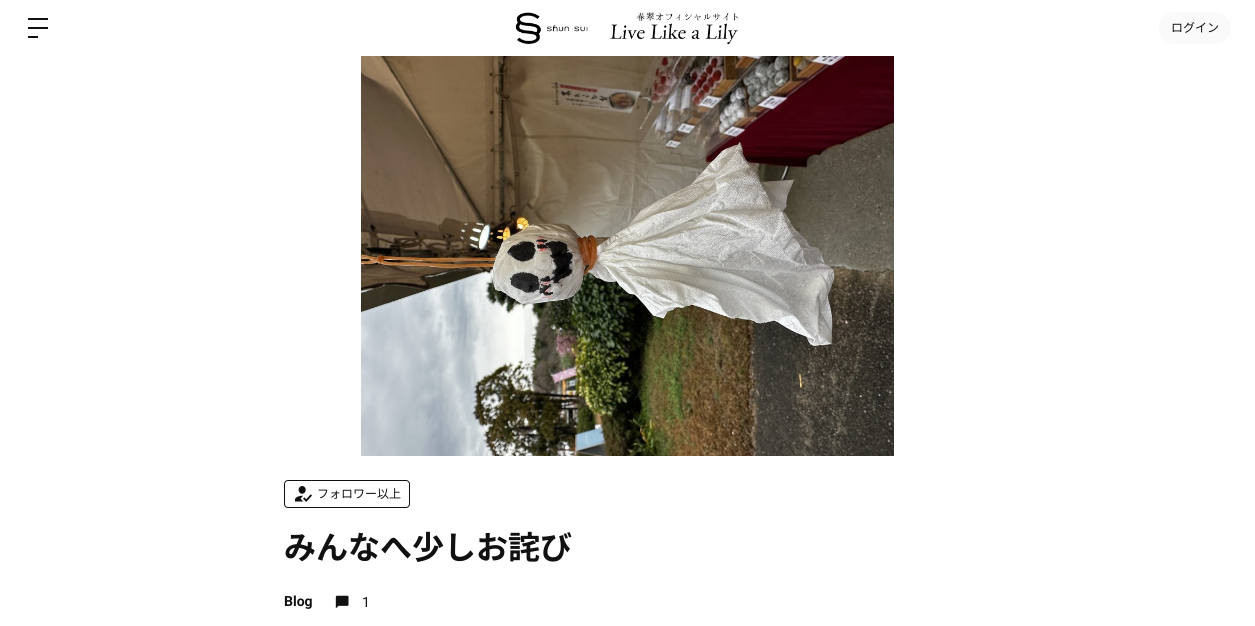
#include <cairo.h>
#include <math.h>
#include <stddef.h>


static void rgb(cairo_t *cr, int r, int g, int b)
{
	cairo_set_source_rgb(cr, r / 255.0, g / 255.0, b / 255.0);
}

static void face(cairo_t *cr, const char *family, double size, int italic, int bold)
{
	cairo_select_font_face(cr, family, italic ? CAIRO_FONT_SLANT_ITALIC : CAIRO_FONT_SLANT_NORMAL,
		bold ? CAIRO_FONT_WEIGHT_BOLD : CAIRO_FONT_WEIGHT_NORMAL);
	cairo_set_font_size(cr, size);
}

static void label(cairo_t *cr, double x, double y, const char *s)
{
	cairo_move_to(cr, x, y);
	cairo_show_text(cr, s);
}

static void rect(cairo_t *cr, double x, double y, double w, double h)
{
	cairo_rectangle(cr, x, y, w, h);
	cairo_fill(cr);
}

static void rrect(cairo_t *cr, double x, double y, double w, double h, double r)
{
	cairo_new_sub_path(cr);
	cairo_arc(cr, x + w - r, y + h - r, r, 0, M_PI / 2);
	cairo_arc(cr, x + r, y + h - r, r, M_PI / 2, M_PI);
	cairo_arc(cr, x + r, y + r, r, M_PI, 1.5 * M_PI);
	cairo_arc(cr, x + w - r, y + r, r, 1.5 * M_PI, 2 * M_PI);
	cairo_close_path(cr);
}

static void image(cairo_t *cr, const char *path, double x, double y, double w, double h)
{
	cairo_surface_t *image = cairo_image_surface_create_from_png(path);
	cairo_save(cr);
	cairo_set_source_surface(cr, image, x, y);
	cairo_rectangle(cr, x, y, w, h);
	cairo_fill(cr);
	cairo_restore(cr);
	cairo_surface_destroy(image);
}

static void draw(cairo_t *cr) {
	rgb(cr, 255, 255, 255);
	cairo_paint(cr);
	rgb(cr, 17, 17, 17);
	rect(cr, 28, 18, 20, 2);
	rect(cr, 28, 27, 20, 2);
	rect(cr, 28, 36, 10, 2);
	image(cr, "image0.png", 515, 12, 223, 32);
	rgb(cr, 250, 250, 250);
	rrect(cr, 1159, 12, 72, 32, 16);
	cairo_fill(cr);
	face(cr, "Noto Sans JP", 12, 0, 0);
	rgb(cr, 17, 17, 17);
	label(cr, 1171, 32, "ログイン");
	image(cr, "image1.png", 361, 56, 533, 400);
	rrect(cr, 284.5, 480.5, 125, 27, 3.5);
	cairo_set_line_width(cr, 1);
	cairo_stroke(cr);
	image(cr, "image2.png", 295, 486, 17, 16);
	label(cr, 317, 498, "フォロワー以上");
	face(cr, "Noto Sans JP", 32, 0, 1);
	label(cr, 284, 559, "みんなへ少しお詫び");
	face(cr, "Roboto", 14, 0, 1);
	label(cr, 284, 606, "Blog");
	image(cr, "image3.png", 335, 595, 14, 14);
	face(cr, "Roboto", 14, 0, 0);
	label(cr, 362, 607, "1");
}

int main(void) {
	cairo_surface_t *surface = cairo_image_surface_create(CAIRO_FORMAT_RGB24, 1255, 626);
	cairo_t *cr = cairo_create(surface);
	cairo_font_options_t *options = cairo_font_options_create();
	cairo_font_options_set_hint_metrics(options, CAIRO_HINT_METRICS_OFF);
	cairo_font_options_set_hint_style(options, CAIRO_HINT_STYLE_NONE);
	cairo_set_font_options(cr, options);
	cairo_set_miter_limit(cr, 4);
	draw(cr);
	cairo_surface_write_to_png(surface, "render.png");
	cairo_font_options_destroy(options);
	cairo_destroy(cr);
	cairo_surface_destroy(surface);
	return 0;
}
